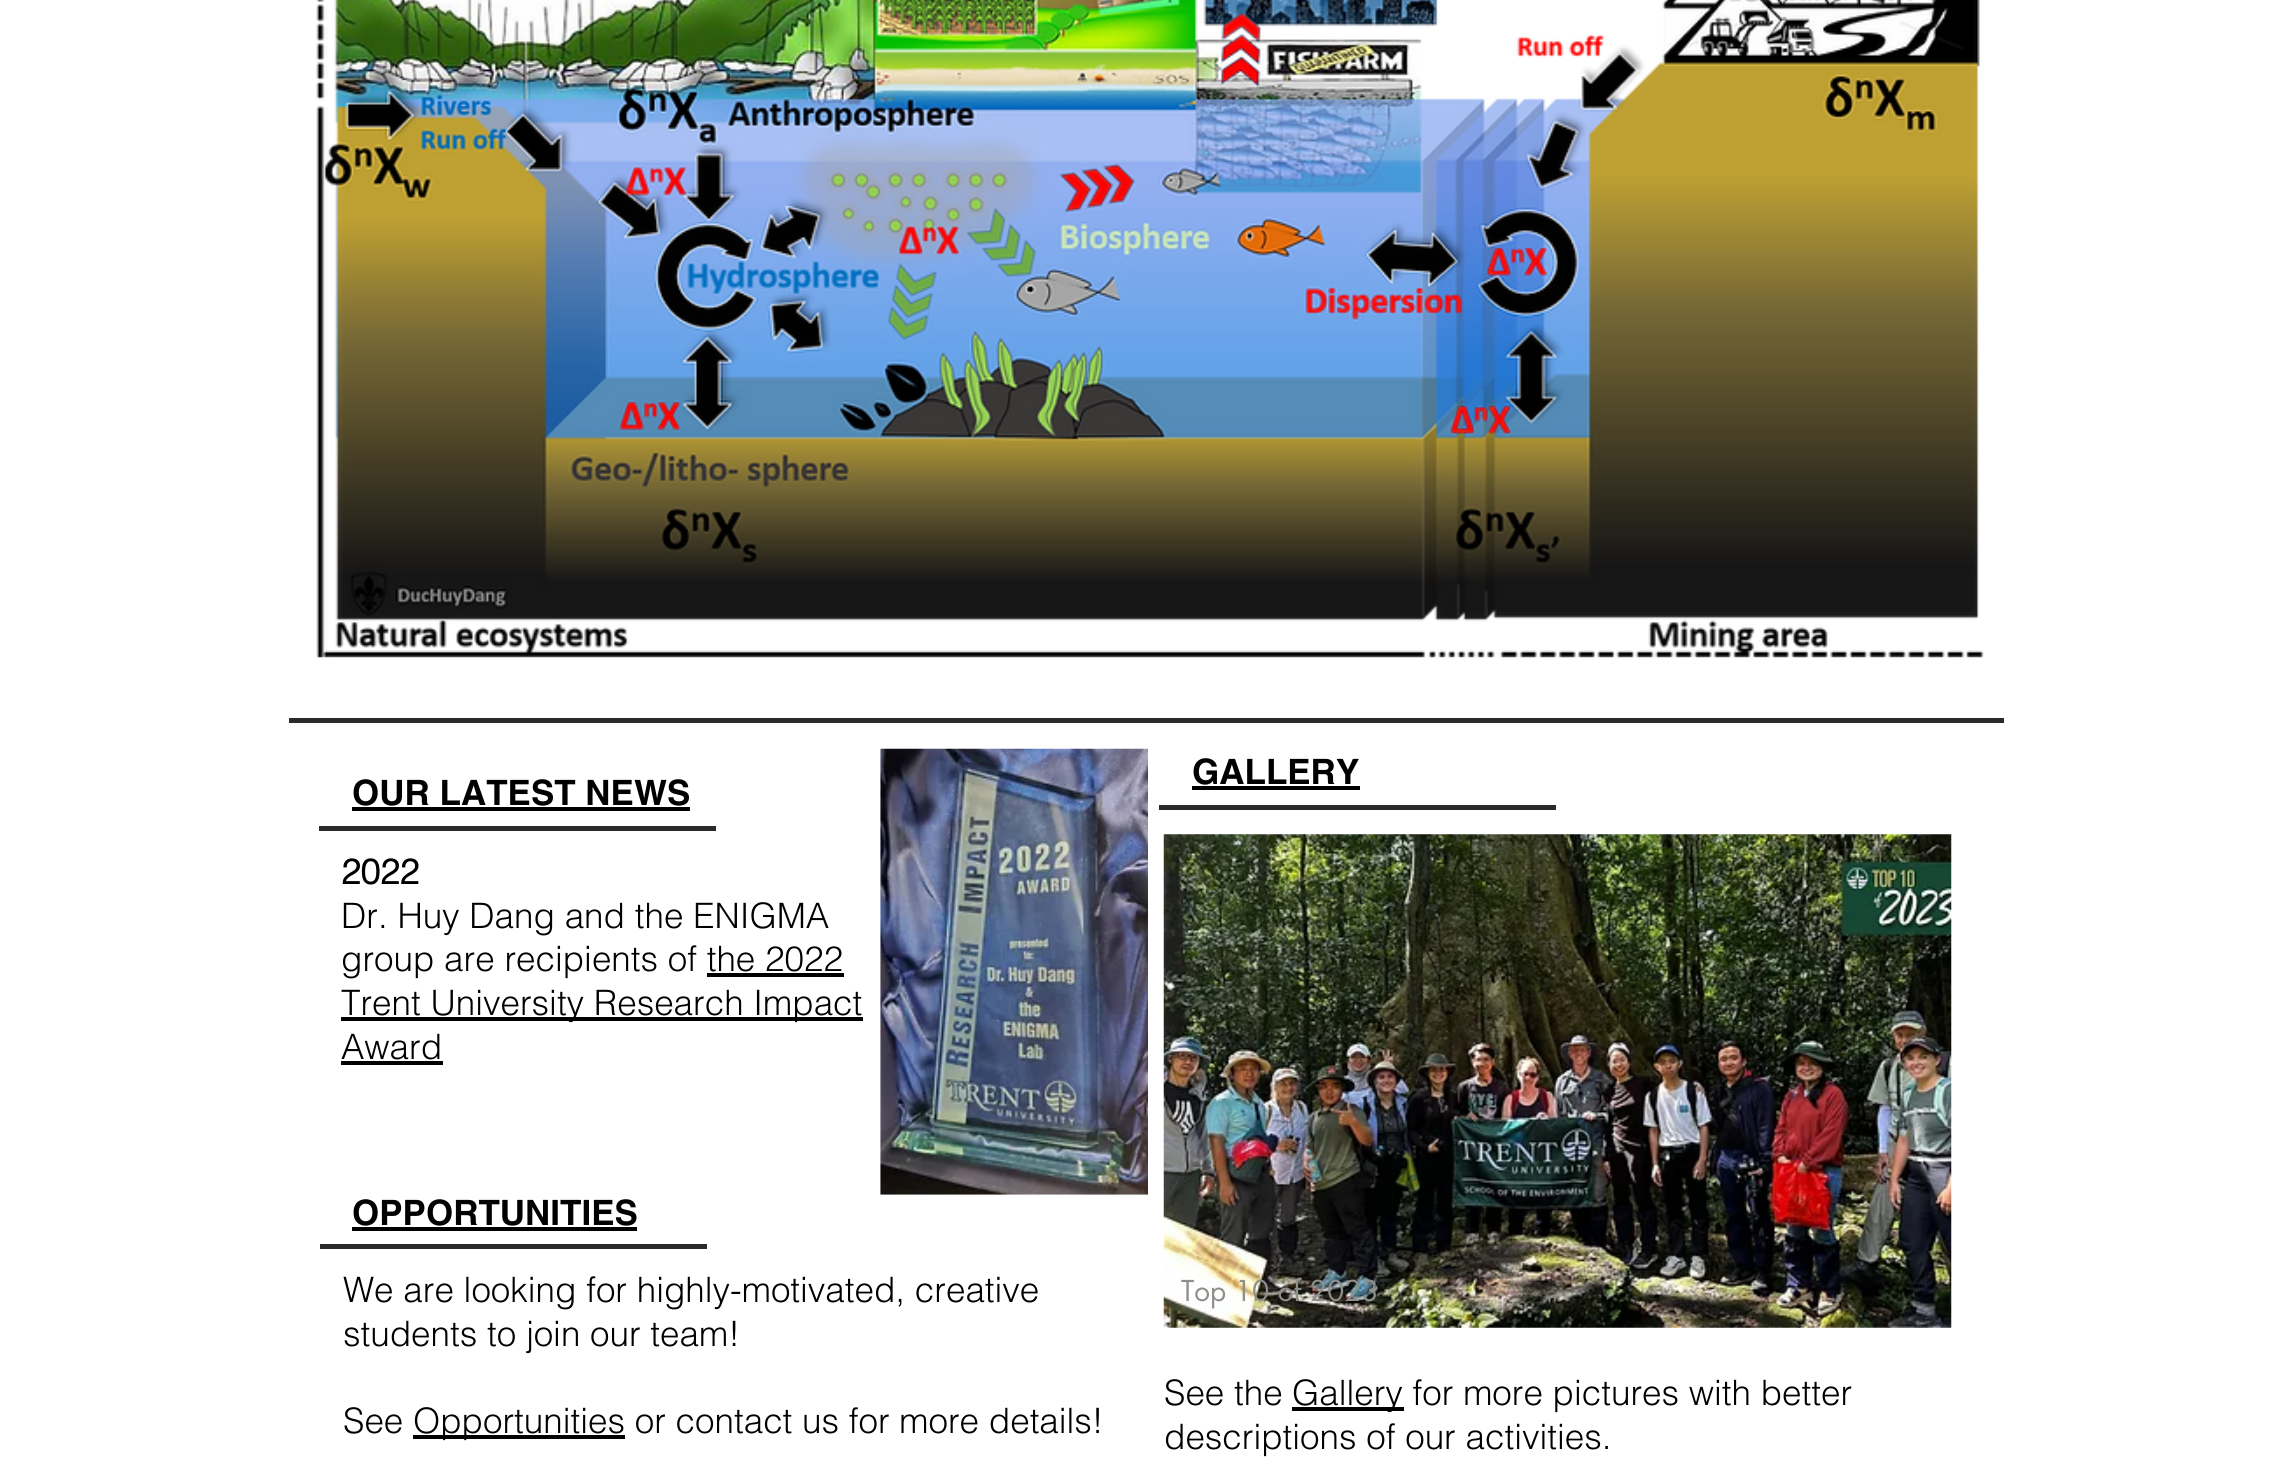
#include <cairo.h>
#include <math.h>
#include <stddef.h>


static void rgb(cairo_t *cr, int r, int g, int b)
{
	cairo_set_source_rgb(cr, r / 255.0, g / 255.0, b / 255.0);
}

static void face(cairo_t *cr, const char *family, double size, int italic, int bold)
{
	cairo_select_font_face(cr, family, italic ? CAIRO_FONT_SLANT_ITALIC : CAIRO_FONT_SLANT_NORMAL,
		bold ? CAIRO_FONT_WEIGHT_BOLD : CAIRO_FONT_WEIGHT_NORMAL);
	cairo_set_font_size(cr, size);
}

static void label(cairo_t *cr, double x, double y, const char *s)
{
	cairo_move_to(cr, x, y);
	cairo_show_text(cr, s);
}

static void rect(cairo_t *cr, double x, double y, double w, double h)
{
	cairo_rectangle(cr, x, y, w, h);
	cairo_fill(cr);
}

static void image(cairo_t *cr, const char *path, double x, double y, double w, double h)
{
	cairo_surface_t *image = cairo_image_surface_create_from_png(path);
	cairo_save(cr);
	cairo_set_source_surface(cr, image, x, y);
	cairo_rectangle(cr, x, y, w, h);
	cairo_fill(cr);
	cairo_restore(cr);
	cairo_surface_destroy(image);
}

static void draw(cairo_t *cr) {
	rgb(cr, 255, 255, 255);
	cairo_paint(cr);
	image(cr, "image0.png", 316, 0, 1668, 658);
	rgb(cr, 42, 42, 42);
	rect(cr, 289, 718, 1715, 5);
	image(cr, "image1.png", 880, 748, 268, 447);
	face(cr, "helvetica", 35, 0, 1);
	rgb(cr, 0, 0, 0);
	label(cr, 1192, 784, "GALLERY");
	rect(cr, 1192, 786, 168, 4);
	rgb(cr, 42, 42, 42);
	rect(cr, 1159, 805, 397, 5);
	rgb(cr, 0, 0, 0);
	label(cr, 352, 805, "OUR LATEST NEWS");
	rect(cr, 352, 807, 338, 4);
	rgb(cr, 42, 42, 42);
	rect(cr, 319, 826, 397, 5);
	face(cr, "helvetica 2", 35, 0, 1);
	rgb(cr, 0, 0, 0);
	label(cr, 341, 884, "2022");
	face(cr, "helvetica Light", 35, 0, 0);
	label(cr, 341, 928, "Dr. Huy Dang and the ENIGMA");
	label(cr, 341, 971, "group are recipients of the 2022");
	rect(cr, 707, 973, 137, 4);
	rect(cr, 341, 1017, 522, 4);
	label(cr, 341, 1015, "Trent University Research Impact");
	label(cr, 341, 1059, "Award");
	rect(cr, 341, 1061, 102, 4);
	face(cr, "helvetica", 35, 0, 1);
	label(cr, 352, 1225, "OPPORTUNITIES");
	rect(cr, 352, 1227, 285, 4);
	rgb(cr, 42, 42, 42);
	rect(cr, 320, 1244, 387, 5);
	face(cr, "helvetica Light", 35, 0, 0);
	rgb(cr, 0, 0, 0);
	label(cr, 343, 1302, "We are looking for highly-motivated, creative");
	label(cr, 343, 1346, "students to join our team!");
	label(cr, 343, 1433, "See");
	rect(cr, 413, 1435, 212, 4);
	label(cr, 413, 1433, "Opportunities or contact us for more details!");
	image(cr, "image2.png", 1163, 834, 789, 494);
	face(cr, "futura", 28, 0, 0);
	rgb(cr, 141, 143, 138);
	label(cr, 1181, 1301, "Top 10 of 2023");
	face(cr, "helvetica Light", 35, 0, 0);
	rgb(cr, 0, 0, 0);
	label(cr, 1164, 1405, "See the");
	rect(cr, 1292, 1407, 112, 4);
	label(cr, 1292, 1405, "Gallery for more pictures with better");
	label(cr, 1164, 1449, "descriptions of our activities.");
}

int main(void) {
	cairo_surface_t *surface = cairo_image_surface_create(CAIRO_FORMAT_RGB24, 2292, 1457);
	cairo_t *cr = cairo_create(surface);
	cairo_font_options_t *options = cairo_font_options_create();
	cairo_font_options_set_hint_metrics(options, CAIRO_HINT_METRICS_OFF);
	cairo_font_options_set_hint_style(options, CAIRO_HINT_STYLE_NONE);
	cairo_set_font_options(cr, options);
	cairo_set_miter_limit(cr, 4);
	draw(cr);
	cairo_surface_write_to_png(surface, "render.png");
	cairo_font_options_destroy(options);
	cairo_destroy(cr);
	cairo_surface_destroy(surface);
	return 0;
}
